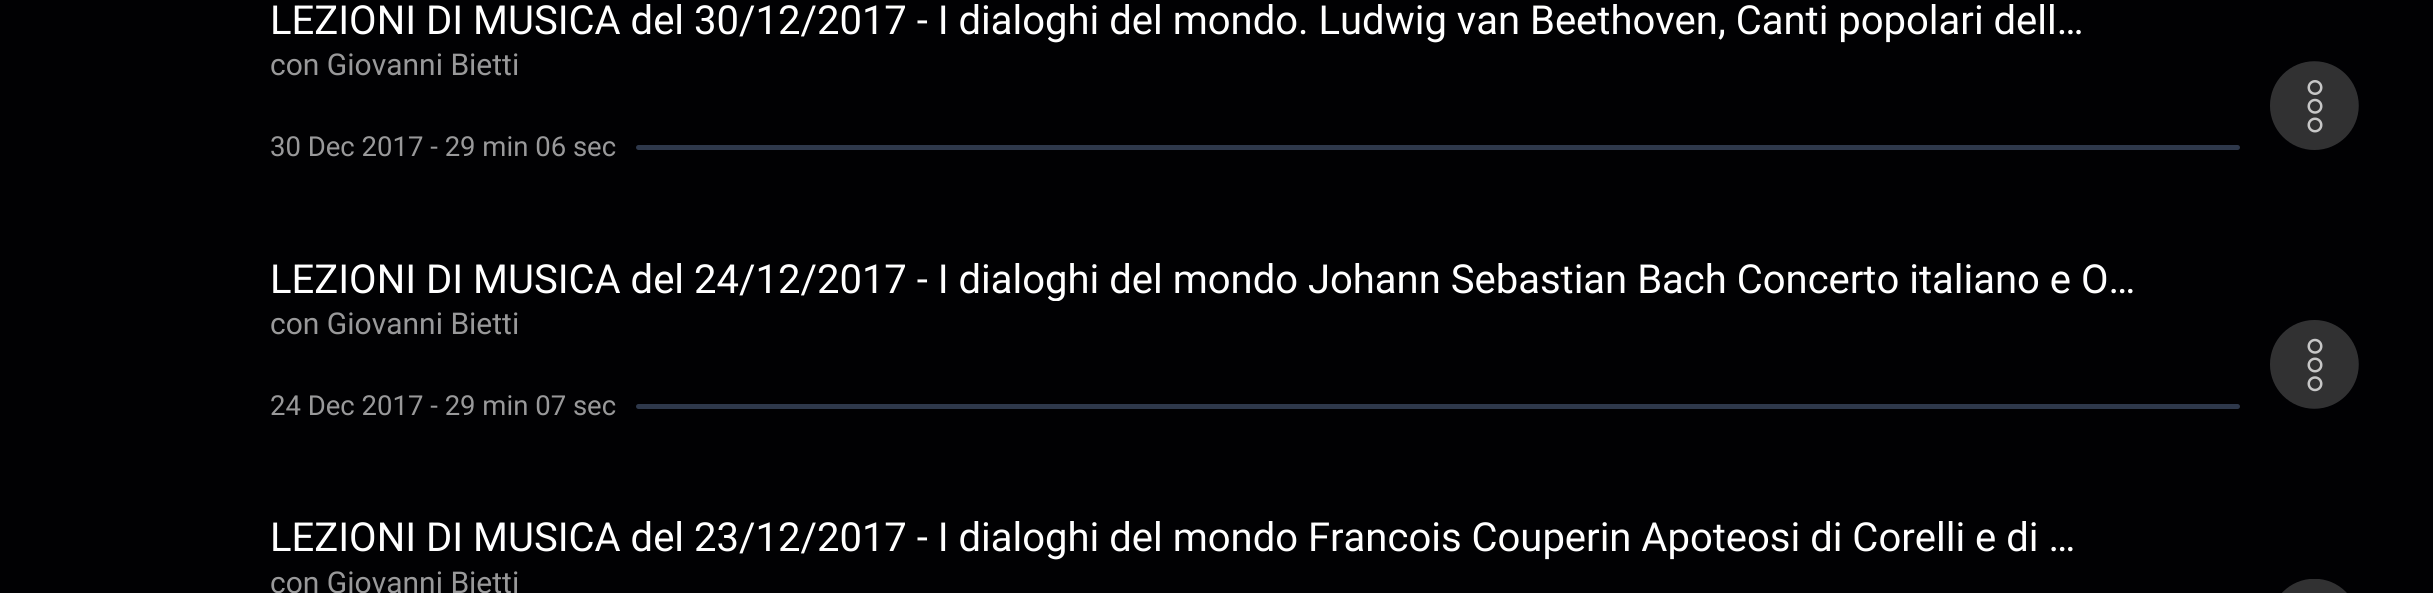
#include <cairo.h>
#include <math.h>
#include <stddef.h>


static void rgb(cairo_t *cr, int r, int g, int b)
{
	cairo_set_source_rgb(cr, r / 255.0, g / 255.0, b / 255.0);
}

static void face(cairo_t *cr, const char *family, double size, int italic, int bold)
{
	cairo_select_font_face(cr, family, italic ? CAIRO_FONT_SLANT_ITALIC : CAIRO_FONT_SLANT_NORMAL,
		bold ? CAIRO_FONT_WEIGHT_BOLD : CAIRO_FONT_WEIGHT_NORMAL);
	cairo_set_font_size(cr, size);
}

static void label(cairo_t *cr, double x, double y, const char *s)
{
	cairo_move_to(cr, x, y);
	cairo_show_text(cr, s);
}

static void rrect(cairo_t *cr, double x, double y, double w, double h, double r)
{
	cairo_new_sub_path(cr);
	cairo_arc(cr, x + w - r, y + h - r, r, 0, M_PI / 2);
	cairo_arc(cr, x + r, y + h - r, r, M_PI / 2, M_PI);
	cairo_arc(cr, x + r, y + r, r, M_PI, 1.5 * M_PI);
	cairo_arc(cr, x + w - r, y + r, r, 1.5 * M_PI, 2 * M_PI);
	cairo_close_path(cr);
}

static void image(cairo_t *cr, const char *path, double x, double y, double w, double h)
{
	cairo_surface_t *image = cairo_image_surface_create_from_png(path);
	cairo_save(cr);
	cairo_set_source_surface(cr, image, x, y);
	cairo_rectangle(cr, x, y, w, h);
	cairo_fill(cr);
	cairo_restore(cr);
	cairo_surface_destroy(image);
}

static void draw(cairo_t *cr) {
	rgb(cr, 1, 1, 3);
	cairo_paint(cr);
	face(cr, "Roboto", 40, 0, 0);
	rgb(cr, 255, 255, 255);
	label(cr, 270, 34, "LEZIONI DI MUSICA del 30/12/2017 - I dialoghi del mondo. Ludwig van Beethoven, Canti popolari dell…");
	face(cr, "Roboto", 30, 0, 0);
	rgb(cr, 153, 153, 154);
	label(cr, 270, 75, "con Giovanni Bietti");
	face(cr, "Roboto", 27.5, 0, 0);
	label(cr, 270, 156, "30 Dec 2017 - 29 min 06 sec");
	rgb(cr, 46, 56, 75);
	rrect(cr, 636, 145, 1604, 5, 2.5);
	cairo_fill(cr);
	image(cr, "image0.png", 2270, 61, 89, 89);
	cairo_save(cr);
	cairo_rectangle(cr, 270, 251, 1970, 50);
	cairo_clip(cr);
	face(cr, "Roboto", 40, 0, 0);
	rgb(cr, 255, 255, 255);
	label(cr, 270, 293, "LEZIONI DI MUSICA del 24/12/2017 - I dialoghi del mondo Johann Sebastian Bach Concerto italiano e O…");
	cairo_restore(cr);
	face(cr, "Roboto", 30, 0, 0);
	rgb(cr, 153, 153, 154);
	label(cr, 270, 334, "con Giovanni Bietti");
	face(cr, "Roboto", 27.5, 0, 0);
	label(cr, 270, 415, "24 Dec 2017 - 29 min 07 sec");
	rgb(cr, 46, 56, 75);
	rrect(cr, 636, 404, 1604, 5, 2.5);
	cairo_fill(cr);
	image(cr, "image1.png", 2270, 320, 89, 89);
	face(cr, "Roboto", 40, 0, 0);
	rgb(cr, 255, 255, 255);
	label(cr, 270, 551, "LEZIONI DI MUSICA del 23/12/2017 - I dialoghi del mondo Francois Couperin Apoteosi di Corelli e di …");
	face(cr, "Roboto", 30, 0, 0);
	rgb(cr, 153, 153, 154);
	label(cr, 270, 593, "con Giovanni Bietti");
	image(cr, "image2.png", 2282, 579, 65, 14);
}

int main(void) {
	cairo_surface_t *surface = cairo_image_surface_create(CAIRO_FORMAT_RGB24, 2433, 593);
	cairo_t *cr = cairo_create(surface);
	cairo_font_options_t *options = cairo_font_options_create();
	cairo_font_options_set_hint_metrics(options, CAIRO_HINT_METRICS_OFF);
	cairo_font_options_set_hint_style(options, CAIRO_HINT_STYLE_NONE);
	cairo_set_font_options(cr, options);
	cairo_set_miter_limit(cr, 4);
	draw(cr);
	cairo_surface_write_to_png(surface, "render.png");
	cairo_font_options_destroy(options);
	cairo_destroy(cr);
	cairo_surface_destroy(surface);
	return 0;
}
